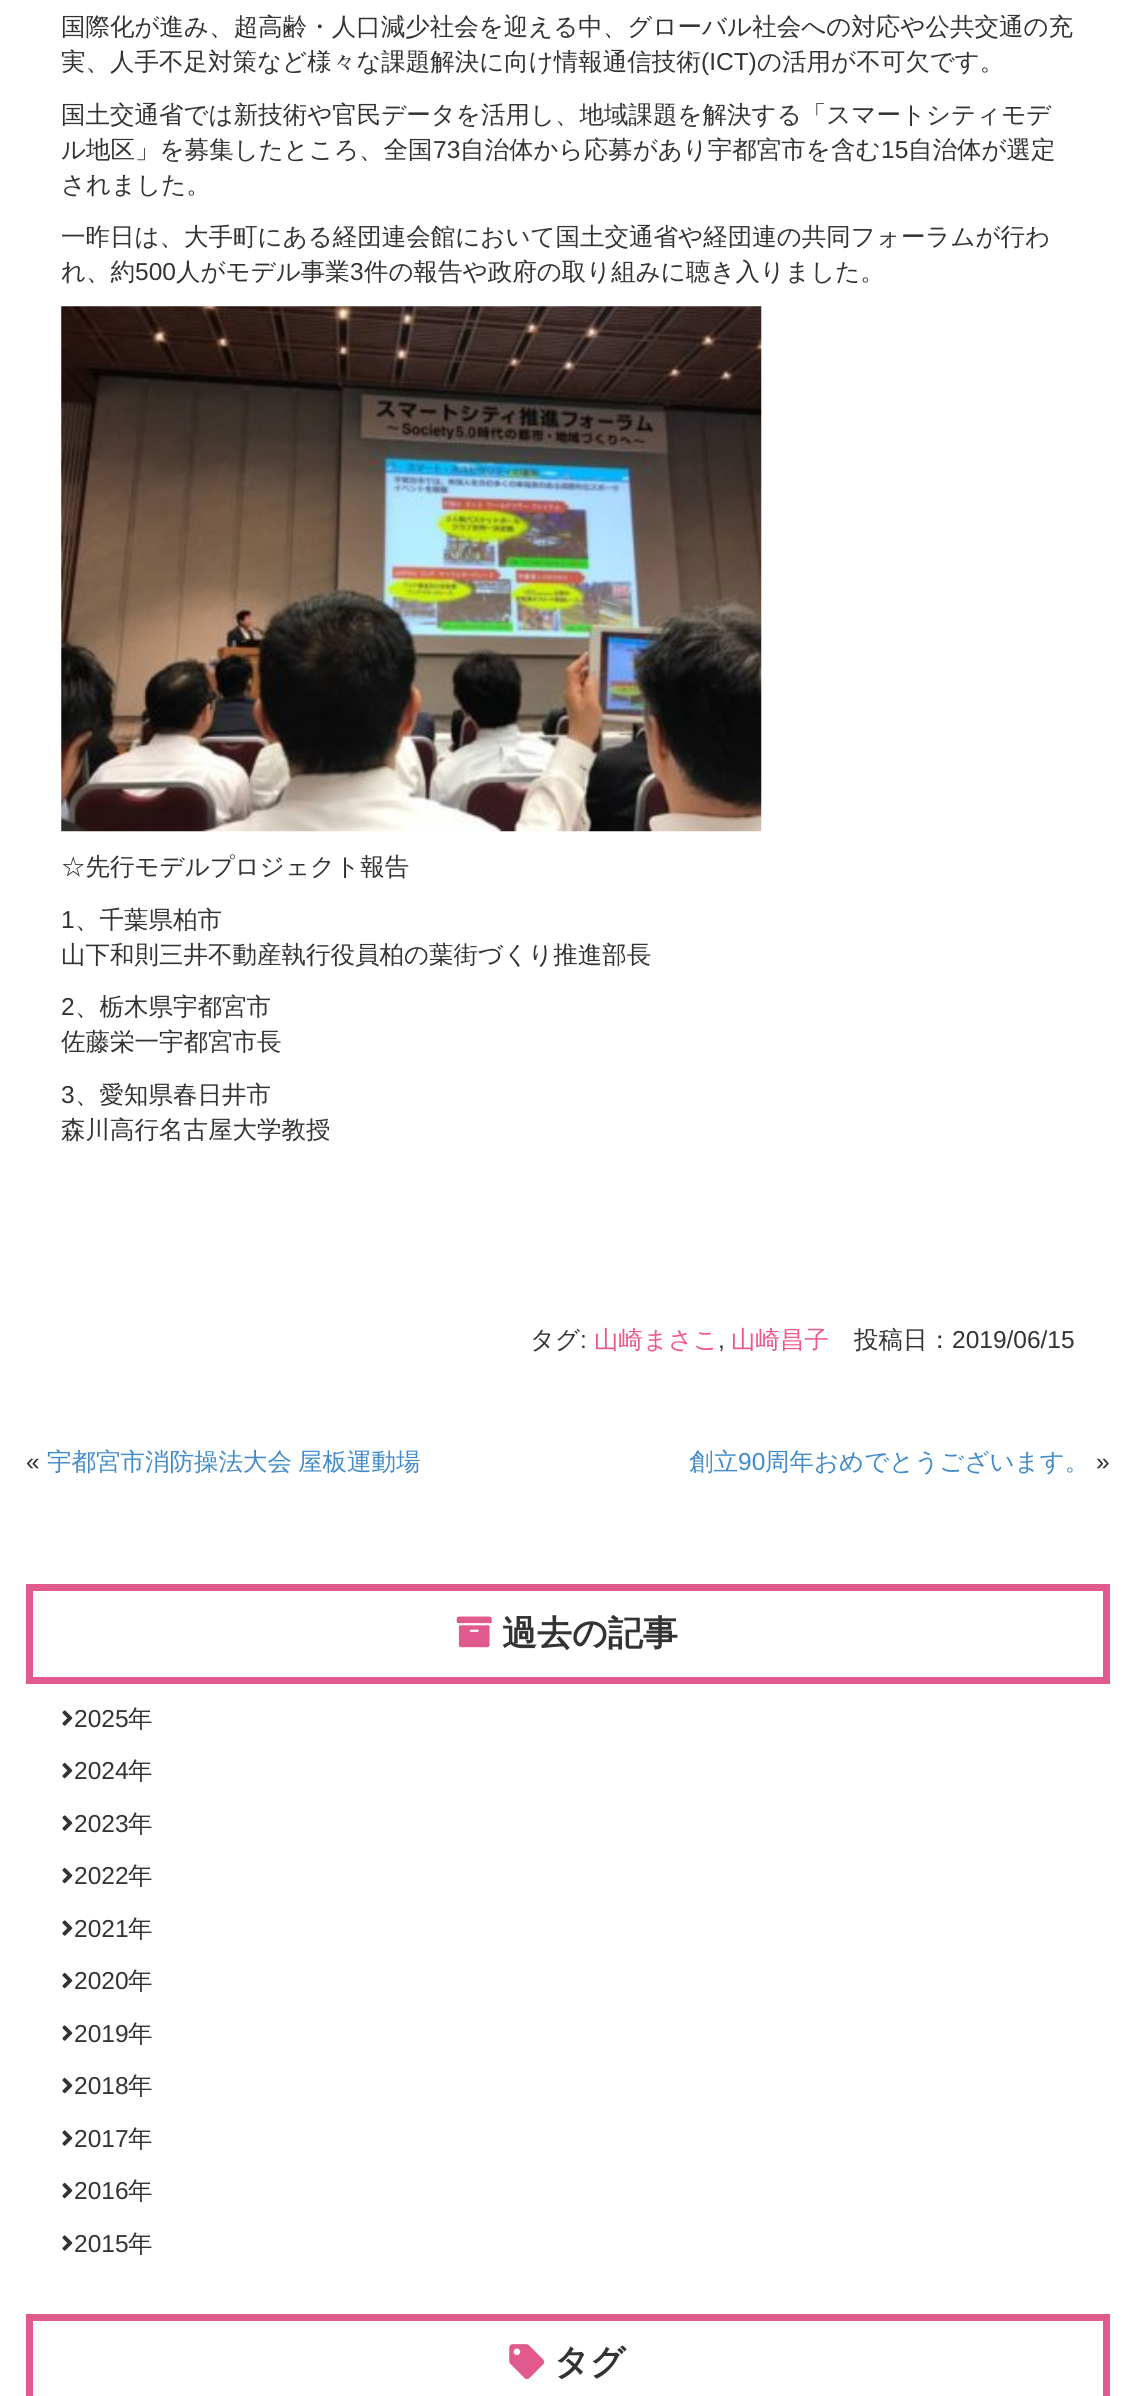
#include <cairo.h>
#include <math.h>
#include <stddef.h>


static void rgb(cairo_t *cr, int r, int g, int b)
{
	cairo_set_source_rgb(cr, r / 255.0, g / 255.0, b / 255.0);
}

static void face(cairo_t *cr, const char *family, double size, int italic, int bold)
{
	cairo_select_font_face(cr, family, italic ? CAIRO_FONT_SLANT_ITALIC : CAIRO_FONT_SLANT_NORMAL,
		bold ? CAIRO_FONT_WEIGHT_BOLD : CAIRO_FONT_WEIGHT_NORMAL);
	cairo_set_font_size(cr, size);
}

static void label(cairo_t *cr, double x, double y, const char *s)
{
	cairo_move_to(cr, x, y);
	cairo_show_text(cr, s);
}

static void image(cairo_t *cr, const char *path, double x, double y, double w, double h)
{
	cairo_surface_t *image = cairo_image_surface_create_from_png(path);
	cairo_save(cr);
	cairo_set_source_surface(cr, image, x, y);
	cairo_rectangle(cr, x, y, w, h);
	cairo_fill(cr);
	cairo_restore(cr);
	cairo_surface_destroy(image);
}

static void draw(cairo_t *cr) {
	rgb(cr, 255, 255, 255);
	cairo_paint(cr);
	face(cr, "WenQuanYi Zen Hei Medium", 24.5, 0, 0);
	rgb(cr, 51, 51, 51);
	label(cr, 61, 35, "国際化が進み、超高齢・人口減少社会を迎える中、グローバル社会への対応や公共交通の充");
	label(cr, 61, 70, "実、人手不足対策など様々な課題解決に向け情報通信技術");
	face(cr, "Liberation Sans", 24.5, 0, 0);
	label(cr, 701, 70, "(ICT)");
	face(cr, "WenQuanYi Zen Hei Medium", 24.5, 0, 0);
	label(cr, 757, 70, "の活用が不可欠です。");
	label(cr, 61, 123, "国土交通省では新技術や官民データを活用し、地域課題を解決する「スマートシティモデ");
	label(cr, 61, 158, "ル地区」を募集したところ、全国");
	face(cr, "Liberation Sans", 24.5, 0, 0);
	label(cr, 433, 158, "73");
	face(cr, "WenQuanYi Zen Hei Medium", 24.5, 0, 0);
	label(cr, 460, 158, "自治体から応募があり宇都宮市を含む");
	face(cr, "Liberation Sans", 24.5, 0, 0);
	label(cr, 881, 158, "15");
	face(cr, "WenQuanYi Zen Hei Medium", 24.5, 0, 0);
	label(cr, 908, 158, "自治体が選定");
	label(cr, 61, 193, "されました。");
	label(cr, 61, 245, "一昨日は、大手町にある経団連会館において国土交通省や経団連の共同フォーラムが行わ");
	label(cr, 61, 280, "れ、約");
	face(cr, "Liberation Sans", 24.5, 0, 0);
	label(cr, 135, 280, "500");
	face(cr, "WenQuanYi Zen Hei Medium", 24.5, 0, 0);
	label(cr, 176, 280, "人がモデル事業");
	face(cr, "Liberation Sans", 24.5, 0, 0);
	label(cr, 350, 280, "3");
	face(cr, "WenQuanYi Zen Hei Medium", 24.5, 0, 0);
	label(cr, 364, 280, "件の報告や政府の取り組みに聴き入りました。");
	image(cr, "image0.png", 61, 306, 701, 526);
	label(cr, 61, 875, "☆先行モデルプロジェクト報告");
	face(cr, "Liberation Sans", 24.5, 0, 0);
	label(cr, 61, 928, "1");
	face(cr, "WenQuanYi Zen Hei Medium", 24.5, 0, 0);
	label(cr, 75, 928, "、千葉県柏市");
	label(cr, 61, 963, "山下和則三井不動産執行役員柏の葉街づくり推進部長");
	face(cr, "Liberation Sans", 24.5, 0, 0);
	label(cr, 61, 1015, "2");
	face(cr, "WenQuanYi Zen Hei Medium", 24.5, 0, 0);
	label(cr, 75, 1015, "、栃木県宇都宮市");
	label(cr, 61, 1050, "佐藤栄一宇都宮市長");
	face(cr, "Liberation Sans", 24.5, 0, 0);
	label(cr, 61, 1103, "3");
	face(cr, "WenQuanYi Zen Hei Medium", 24.5, 0, 0);
	label(cr, 75, 1103, "、愛知県春日井市");
	label(cr, 61, 1138, "森川高行名古屋大学教授");
	label(cr, 530, 1348, "タグ");
	face(cr, "Liberation Sans", 24.5, 0, 0);
	label(cr, 580, 1348, ":");
	face(cr, "WenQuanYi Zen Hei Medium", 24.5, 0, 0);
	rgb(cr, 238, 86, 138);
	label(cr, 594, 1348, "山崎まさこ");
	face(cr, "Liberation Sans", 24.5, 0, 0);
	rgb(cr, 51, 51, 51);
	label(cr, 718, 1348, ",");
	face(cr, "WenQuanYi Zen Hei Medium", 24.5, 0, 0);
	rgb(cr, 238, 86, 138);
	label(cr, 731, 1348, "山崎昌子");
	rgb(cr, 51, 51, 51);
	label(cr, 854, 1348, "投稿日：");
	face(cr, "Liberation Sans", 24.5, 0, 0);
	label(cr, 952, 1348, "2019/06/15");
	label(cr, 26, 1470, "«");
	face(cr, "WenQuanYi Zen Hei Medium", 24.5, 0, 0);
	rgb(cr, 66, 139, 202);
	label(cr, 47, 1470, "宇都宮市消防操法大会");
	label(cr, 298, 1470, "屋板運動場");
	label(cr, 689, 1470, "創立");
	face(cr, "Liberation Sans", 24.5, 0, 0);
	label(cr, 738, 1470, "90");
	face(cr, "WenQuanYi Zen Hei Medium", 24.5, 0, 0);
	label(cr, 765, 1470, "周年おめでとうございます。");
	face(cr, "Liberation Sans", 24.5, 0, 0);
	rgb(cr, 51, 51, 51);
	label(cr, 1096, 1470, "»");
	cairo_rectangle(cr, 29.5, 1587.5, 1077, 93);
	rgb(cr, 224, 90, 141);
	cairo_set_line_width(cr, 7);
	cairo_stroke(cr);
	image(cr, "image1.png", 456, 1616, 36, 32);
	face(cr, "WenQuanYi Zen Hei", 35, 0, 1);
	rgb(cr, 51, 51, 51);
	label(cr, 502, 1645, "過去の記事");
	image(cr, "image2.png", 62, 1710, 11, 16);
	face(cr, "Liberation Sans", 24.5, 0, 0);
	label(cr, 74, 1727, "2025");
	face(cr, "WenQuanYi Zen Hei Medium", 24.5, 0, 0);
	label(cr, 128, 1727, "年");
	image(cr, "image3.png", 62, 1762, 11, 17);
	face(cr, "Liberation Sans", 24.5, 0, 0);
	label(cr, 74, 1779, "2024");
	face(cr, "WenQuanYi Zen Hei Medium", 24.5, 0, 0);
	label(cr, 128, 1779, "年");
	image(cr, "image2.png", 62, 1815, 11, 16);
	face(cr, "Liberation Sans", 24.5, 0, 0);
	label(cr, 74, 1832, "2023");
	face(cr, "WenQuanYi Zen Hei Medium", 24.5, 0, 0);
	label(cr, 128, 1832, "年");
	image(cr, "image3.png", 62, 1867, 11, 17);
	face(cr, "Liberation Sans", 24.5, 0, 0);
	label(cr, 74, 1884, "2022");
	face(cr, "WenQuanYi Zen Hei Medium", 24.5, 0, 0);
	label(cr, 128, 1884, "年");
	image(cr, "image2.png", 62, 1920, 11, 16);
	face(cr, "Liberation Sans", 24.5, 0, 0);
	label(cr, 74, 1937, "2021");
	face(cr, "WenQuanYi Zen Hei Medium", 24.5, 0, 0);
	label(cr, 128, 1937, "年");
	image(cr, "image3.png", 62, 1972, 11, 17);
	face(cr, "Liberation Sans", 24.5, 0, 0);
	label(cr, 74, 1989, "2020");
	face(cr, "WenQuanYi Zen Hei Medium", 24.5, 0, 0);
	label(cr, 128, 1989, "年");
	image(cr, "image2.png", 62, 2025, 11, 16);
	face(cr, "Liberation Sans", 24.5, 0, 0);
	label(cr, 74, 2042, "2019");
	face(cr, "WenQuanYi Zen Hei Medium", 24.5, 0, 0);
	label(cr, 128, 2042, "年");
	image(cr, "image3.png", 62, 2077, 11, 17);
	face(cr, "Liberation Sans", 24.5, 0, 0);
	label(cr, 74, 2094, "2018");
	face(cr, "WenQuanYi Zen Hei Medium", 24.5, 0, 0);
	label(cr, 128, 2094, "年");
	image(cr, "image2.png", 62, 2130, 11, 16);
	face(cr, "Liberation Sans", 24.5, 0, 0);
	label(cr, 74, 2147, "2017");
	face(cr, "WenQuanYi Zen Hei Medium", 24.5, 0, 0);
	label(cr, 128, 2147, "年");
	image(cr, "image3.png", 62, 2182, 11, 17);
	face(cr, "Liberation Sans", 24.5, 0, 0);
	label(cr, 74, 2199, "2016");
	face(cr, "WenQuanYi Zen Hei Medium", 24.5, 0, 0);
	label(cr, 128, 2199, "年");
	image(cr, "image2.png", 62, 2235, 11, 16);
	face(cr, "Liberation Sans", 24.5, 0, 0);
	label(cr, 74, 2252, "2015");
	face(cr, "WenQuanYi Zen Hei Medium", 24.5, 0, 0);
	label(cr, 128, 2252, "年");
	cairo_rectangle(cr, 29.5, 2317.5, 1077, 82);
	rgb(cr, 224, 90, 141);
	cairo_stroke(cr);
	image(cr, "image4.png", 509, 2344, 36, 36);
	face(cr, "WenQuanYi Zen Hei", 35, 0, 1);
	rgb(cr, 51, 51, 51);
	label(cr, 554, 2374, "タグ");
}

int main(void) {
	cairo_surface_t *surface = cairo_image_surface_create(CAIRO_FORMAT_RGB24, 1135, 2396);
	cairo_t *cr = cairo_create(surface);
	cairo_font_options_t *options = cairo_font_options_create();
	cairo_font_options_set_hint_metrics(options, CAIRO_HINT_METRICS_OFF);
	cairo_font_options_set_hint_style(options, CAIRO_HINT_STYLE_NONE);
	cairo_set_font_options(cr, options);
	cairo_set_miter_limit(cr, 4);
	draw(cr);
	cairo_surface_write_to_png(surface, "render.png");
	cairo_font_options_destroy(options);
	cairo_destroy(cr);
	cairo_surface_destroy(surface);
	return 0;
}
